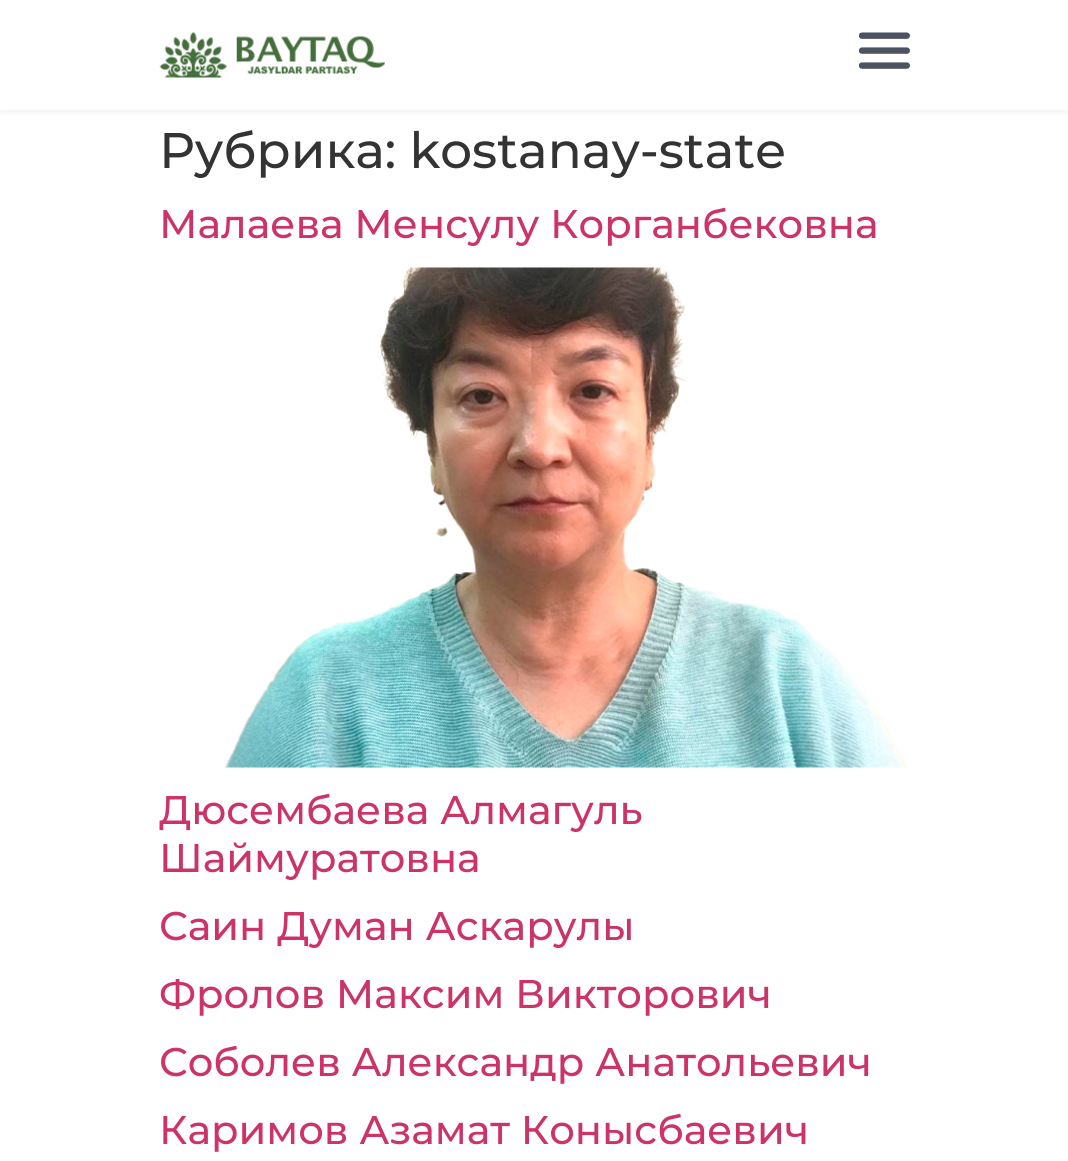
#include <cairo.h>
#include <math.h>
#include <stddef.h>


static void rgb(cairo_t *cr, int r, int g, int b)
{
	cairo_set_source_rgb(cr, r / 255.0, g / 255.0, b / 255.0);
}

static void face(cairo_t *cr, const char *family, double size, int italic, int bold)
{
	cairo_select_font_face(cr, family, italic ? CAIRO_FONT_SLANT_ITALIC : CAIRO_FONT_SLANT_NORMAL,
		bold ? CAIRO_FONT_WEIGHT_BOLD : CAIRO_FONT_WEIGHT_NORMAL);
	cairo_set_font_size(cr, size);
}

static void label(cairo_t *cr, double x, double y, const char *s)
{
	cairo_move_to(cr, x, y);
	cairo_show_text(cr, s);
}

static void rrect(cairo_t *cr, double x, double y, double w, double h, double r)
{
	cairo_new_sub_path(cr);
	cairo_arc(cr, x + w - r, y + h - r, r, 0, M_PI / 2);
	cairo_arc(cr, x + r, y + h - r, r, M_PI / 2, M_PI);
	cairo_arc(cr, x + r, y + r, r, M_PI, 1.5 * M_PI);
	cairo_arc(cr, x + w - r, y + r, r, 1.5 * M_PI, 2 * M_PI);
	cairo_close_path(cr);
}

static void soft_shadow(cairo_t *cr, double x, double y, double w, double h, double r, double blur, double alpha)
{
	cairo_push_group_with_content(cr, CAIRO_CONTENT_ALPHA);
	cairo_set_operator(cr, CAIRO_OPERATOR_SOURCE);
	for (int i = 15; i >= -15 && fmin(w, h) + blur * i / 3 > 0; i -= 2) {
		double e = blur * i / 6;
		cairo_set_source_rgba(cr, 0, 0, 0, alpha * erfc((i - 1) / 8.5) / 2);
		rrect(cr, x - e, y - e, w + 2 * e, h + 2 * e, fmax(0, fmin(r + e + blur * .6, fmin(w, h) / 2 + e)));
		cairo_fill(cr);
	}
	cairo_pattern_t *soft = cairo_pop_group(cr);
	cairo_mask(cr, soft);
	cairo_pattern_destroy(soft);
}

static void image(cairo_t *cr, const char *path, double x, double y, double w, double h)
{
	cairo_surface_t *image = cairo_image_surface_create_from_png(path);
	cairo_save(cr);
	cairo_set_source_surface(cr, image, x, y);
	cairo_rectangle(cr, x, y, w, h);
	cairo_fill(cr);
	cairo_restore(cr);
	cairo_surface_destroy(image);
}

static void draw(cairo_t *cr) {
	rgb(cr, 255, 255, 255);
	cairo_paint(cr);
	cairo_save(cr);
	cairo_rectangle(cr, 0, 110, 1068, 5);
	cairo_clip(cr);
	rgb(cr, 0, 0, 0);
	soft_shadow(cr, 0, 0, 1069, 110, 0, 6, 0.09);
	cairo_restore(cr);
	image(cr, "image0.png", 159, 32, 226, 46);
	image(cr, "image1.png", 859, 32, 51, 37);
	face(cr, "Montserrat Medium", 50, 0, 0);
	rgb(cr, 51, 51, 51);
	label(cr, 159, 168, "Рубрика: kostanay-state");
	face(cr, "Montserrat Medium", 40, 0, 0);
	rgb(cr, 204, 51, 102);
	label(cr, 159, 238, "Малаева Менсулу Корганбековна");
	image(cr, "image2.png", 224, 267, 684, 501);
	label(cr, 159, 824, "Дюсембаева Алмагуль");
	label(cr, 159, 872, "Шаймуратовна");
	label(cr, 159, 940, "Саин Думан Аскарулы");
	label(cr, 159, 1008, "Фролов Максим Викторович");
	label(cr, 159, 1076, "Соболев Александр Анатольевич");
	label(cr, 159, 1144, "Каримов Азамат Конысбаевич");
}

int main(void) {
	cairo_surface_t *surface = cairo_image_surface_create(CAIRO_FORMAT_RGB24, 1068, 1161);
	cairo_t *cr = cairo_create(surface);
	cairo_font_options_t *options = cairo_font_options_create();
	cairo_font_options_set_hint_metrics(options, CAIRO_HINT_METRICS_OFF);
	cairo_font_options_set_hint_style(options, CAIRO_HINT_STYLE_NONE);
	cairo_set_font_options(cr, options);
	cairo_set_miter_limit(cr, 4);
	draw(cr);
	cairo_surface_write_to_png(surface, "render.png");
	cairo_font_options_destroy(options);
	cairo_destroy(cr);
	cairo_surface_destroy(surface);
	return 0;
}
